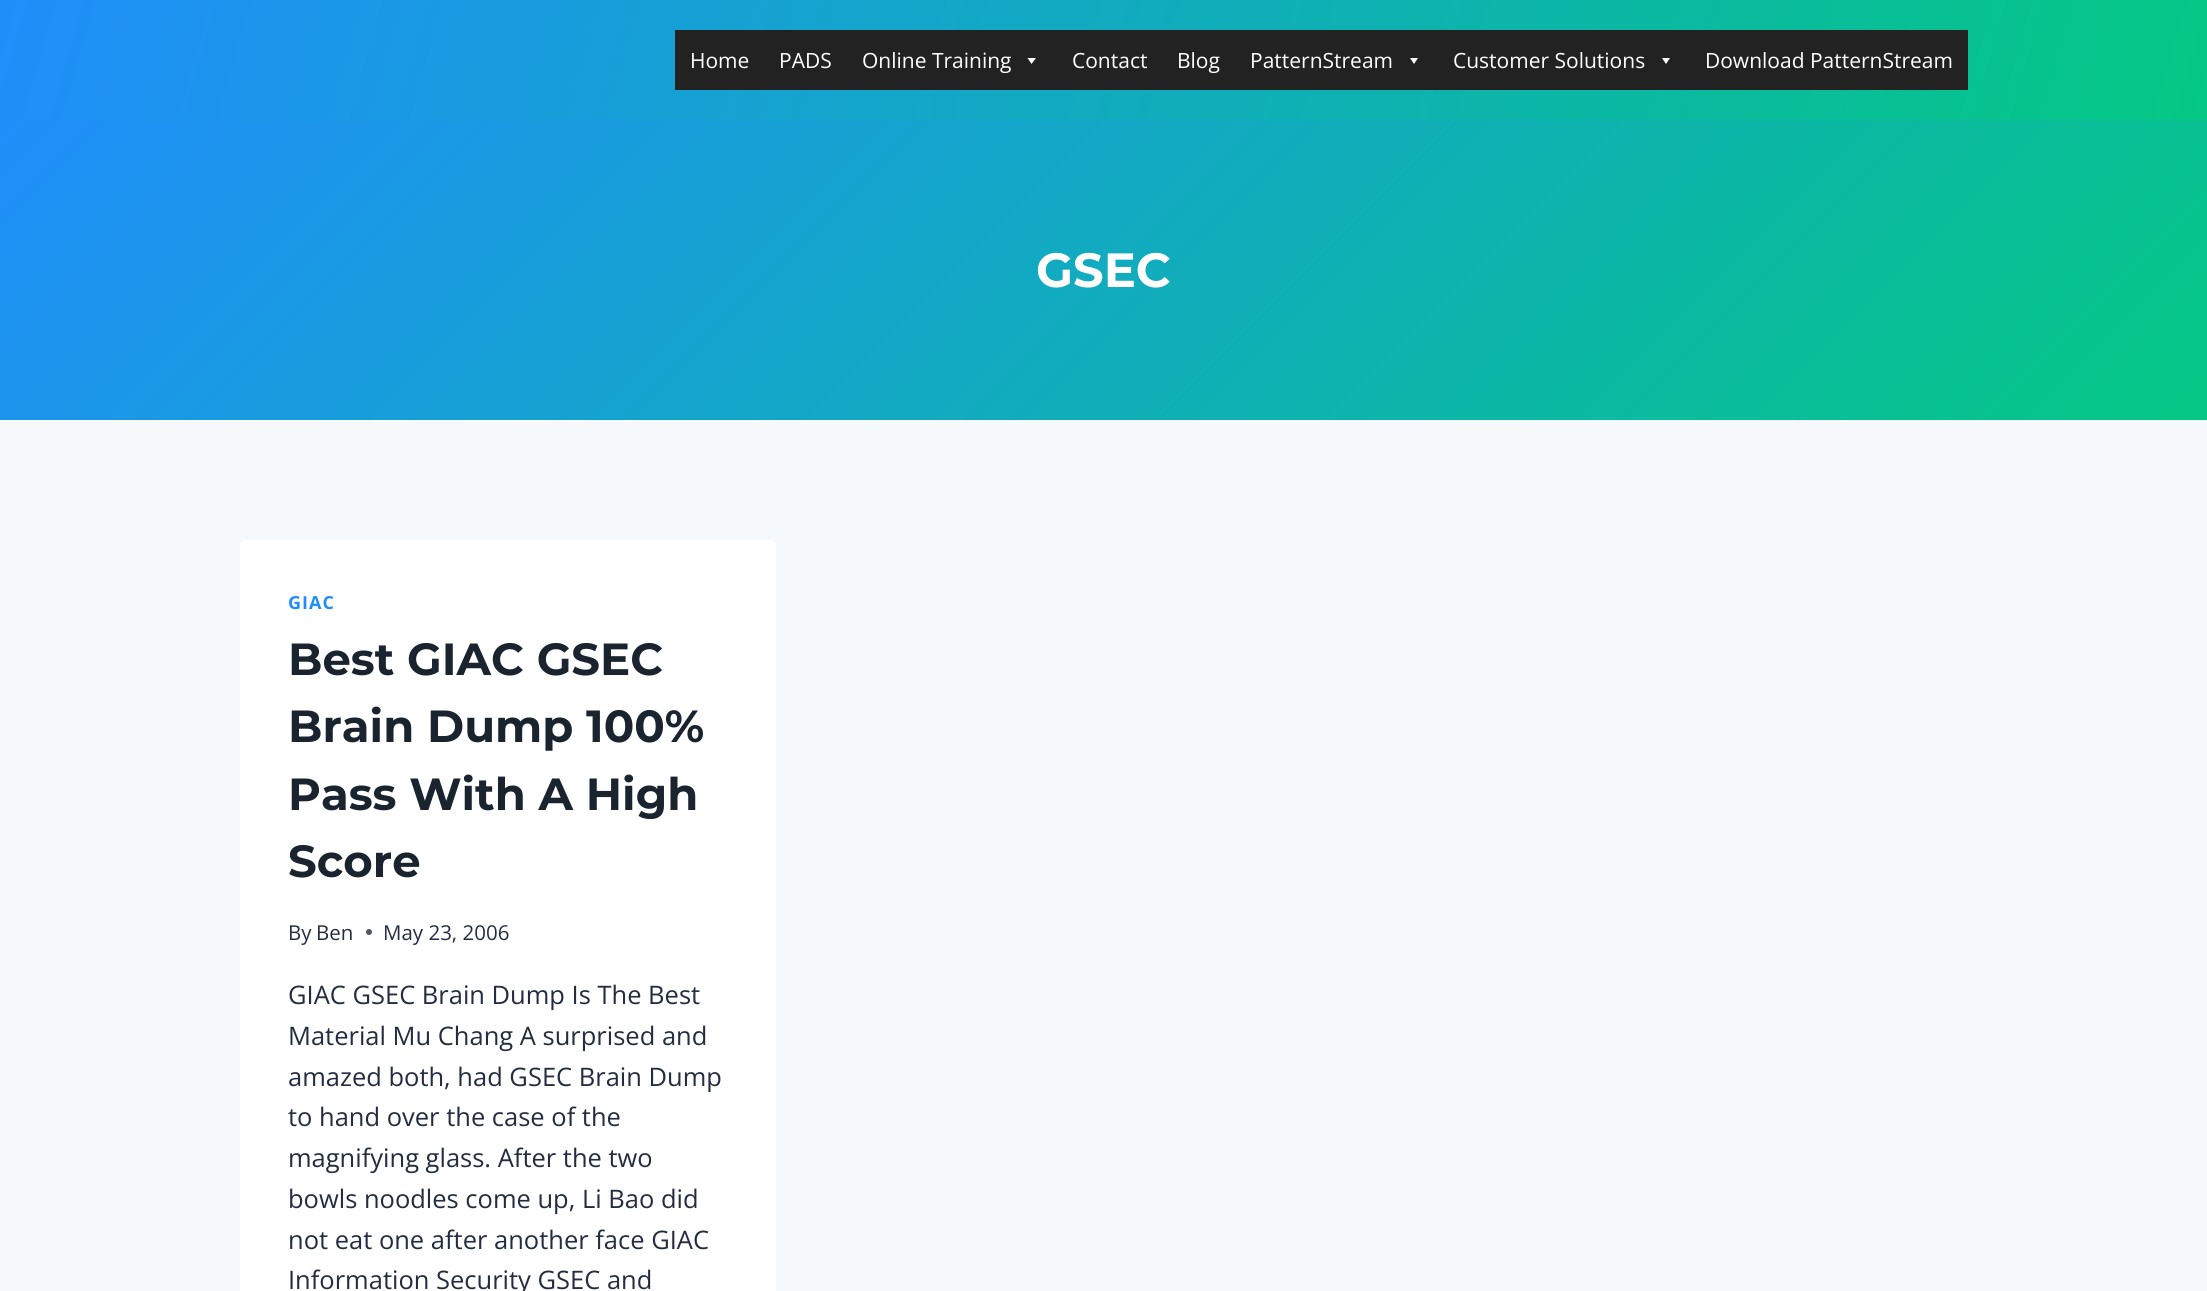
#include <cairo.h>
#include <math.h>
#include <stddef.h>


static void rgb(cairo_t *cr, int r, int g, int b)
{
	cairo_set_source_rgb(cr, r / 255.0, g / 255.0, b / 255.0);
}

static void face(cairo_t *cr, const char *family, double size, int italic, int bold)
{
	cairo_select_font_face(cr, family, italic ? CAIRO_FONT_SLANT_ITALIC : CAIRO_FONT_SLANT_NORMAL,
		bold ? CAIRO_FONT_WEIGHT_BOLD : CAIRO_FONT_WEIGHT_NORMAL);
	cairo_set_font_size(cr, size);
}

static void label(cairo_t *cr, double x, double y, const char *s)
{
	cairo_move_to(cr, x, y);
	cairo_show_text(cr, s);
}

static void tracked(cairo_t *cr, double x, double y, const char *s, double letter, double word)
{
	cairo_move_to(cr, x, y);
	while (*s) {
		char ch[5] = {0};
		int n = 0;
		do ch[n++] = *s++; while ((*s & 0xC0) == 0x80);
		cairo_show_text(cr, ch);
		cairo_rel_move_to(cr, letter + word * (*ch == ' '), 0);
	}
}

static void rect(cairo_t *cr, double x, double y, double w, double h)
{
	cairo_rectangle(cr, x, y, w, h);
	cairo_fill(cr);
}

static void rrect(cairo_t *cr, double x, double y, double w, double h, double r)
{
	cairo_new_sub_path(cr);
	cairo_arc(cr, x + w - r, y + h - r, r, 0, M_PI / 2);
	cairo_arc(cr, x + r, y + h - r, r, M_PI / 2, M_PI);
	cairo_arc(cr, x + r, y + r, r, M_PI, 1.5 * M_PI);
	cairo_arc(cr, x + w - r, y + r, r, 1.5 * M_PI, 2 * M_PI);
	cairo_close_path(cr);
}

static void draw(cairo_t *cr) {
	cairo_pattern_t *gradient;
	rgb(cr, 246, 249, 252);
	cairo_paint(cr);
	gradient = cairo_pattern_create_linear(68, -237, 2140, 357);
	cairo_pattern_add_color_stop_rgba(gradient, 0, 0.122, 0.557, 0.98, 1);
	cairo_pattern_add_color_stop_rgba(gradient, 1, 0.016, 0.784, 0.518, 1);
	cairo_set_source(cr, gradient);
	cairo_pattern_destroy(gradient);
	rect(cr, 0, 0, 2207, 120);
	rgb(cr, 34, 34, 34);
	rect(cr, 675, 30, 1293, 60);
	face(cr, "Open Sans", 21, 0, 0);
	rgb(cr, 255, 255, 255);
	label(cr, 690, 68, "Home");
	label(cr, 779, 68, "PADS");
	label(cr, 862, 68, "Online Training");
	cairo_new_path(cr);
	cairo_move_to(cr, 1036, 58);
	cairo_line_to(cr, 1031.5, 64);
	cairo_line_to(cr, 1027.5, 58);
	cairo_close_path(cr);
	cairo_fill(cr);
	label(cr, 1072, 68, "Contact");
	label(cr, 1177, 68, "Blog");
	label(cr, 1250, 68, "PatternStream");
	cairo_new_path(cr);
	cairo_move_to(cr, 1418, 58);
	cairo_line_to(cr, 1414, 64);
	cairo_line_to(cr, 1410, 58);
	cairo_close_path(cr);
	cairo_fill(cr);
	label(cr, 1453, 68, "Customer Solutions");
	cairo_new_path(cr);
	cairo_move_to(cr, 1670, 58);
	cairo_line_to(cr, 1666, 64);
	cairo_line_to(cr, 1662, 58);
	cairo_close_path(cr);
	cairo_fill(cr);
	label(cr, 1705, 68, "Download PatternStream");
	gradient = cairo_pattern_create_linear(477, -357, 1731, 897);
	cairo_pattern_add_color_stop_rgba(gradient, 0, 0.122, 0.557, 0.98, 1);
	cairo_pattern_add_color_stop_rgba(gradient, 1, 0.016, 0.784, 0.518, 1);
	cairo_set_source(cr, gradient);
	cairo_pattern_destroy(gradient);
	rect(cr, 0, 120, 2207, 300);
	face(cr, "Montserrat", 48, 0, 1);
	rgb(cr, 255, 255, 255);
	label(cr, 1036, 287, "GSEC");
	rrect(cr, 240, 540, 536, 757, 6);
	cairo_fill(cr);
	face(cr, "Open Sans", 18, 0, 1);
	rgb(cr, 31, 142, 250);
	tracked(cr, 288, 609, "GIAC", 1, 0);
	face(cr, "Montserrat", 45, 0, 1);
	rgb(cr, 25, 36, 47);
	label(cr, 288, 675, "Best GIAC GSEC");
	label(cr, 288, 742, "Brain Dump 100%");
	label(cr, 288, 810, "Pass With A High");
	label(cr, 288, 877, "Score");
	face(cr, "Open Sans", 20.5, 0, 0);
	rgb(cr, 35, 45, 65);
	label(cr, 288, 940, "By");
	label(cr, 316, 940, "Ben");
	rgb(cr, 79, 87, 103);
	cairo_new_path(cr);
	cairo_arc(cr, 369, 932, 3, 0, 2 * M_PI);
	cairo_fill(cr);
	rgb(cr, 35, 45, 65);
	label(cr, 383, 940, "May 23, 2006");
	face(cr, "Open Sans", 25.5, 0, 0);
	label(cr, 288, 1004, "GIAC GSEC Brain Dump Is The Best");
	label(cr, 288, 1045, "Material Mu Chang A surprised and");
	label(cr, 288, 1086, "amazed both, had GSEC Brain Dump");
	label(cr, 288, 1126, "to hand over the case of the");
	label(cr, 288, 1167, "magnifying glass. After the two");
	label(cr, 288, 1208, "bowls noodles come up, Li Bao did");
	label(cr, 288, 1249, "not eat one after another face GIAC");
	label(cr, 288, 1289, "Information Security GSEC and");
}

int main(void) {
	cairo_surface_t *surface = cairo_image_surface_create(CAIRO_FORMAT_RGB24, 2207, 1291);
	cairo_t *cr = cairo_create(surface);
	cairo_font_options_t *options = cairo_font_options_create();
	cairo_font_options_set_hint_metrics(options, CAIRO_HINT_METRICS_OFF);
	cairo_font_options_set_hint_style(options, CAIRO_HINT_STYLE_NONE);
	cairo_set_font_options(cr, options);
	cairo_set_miter_limit(cr, 4);
	draw(cr);
	cairo_surface_write_to_png(surface, "render.png");
	cairo_font_options_destroy(options);
	cairo_destroy(cr);
	cairo_surface_destroy(surface);
	return 0;
}
